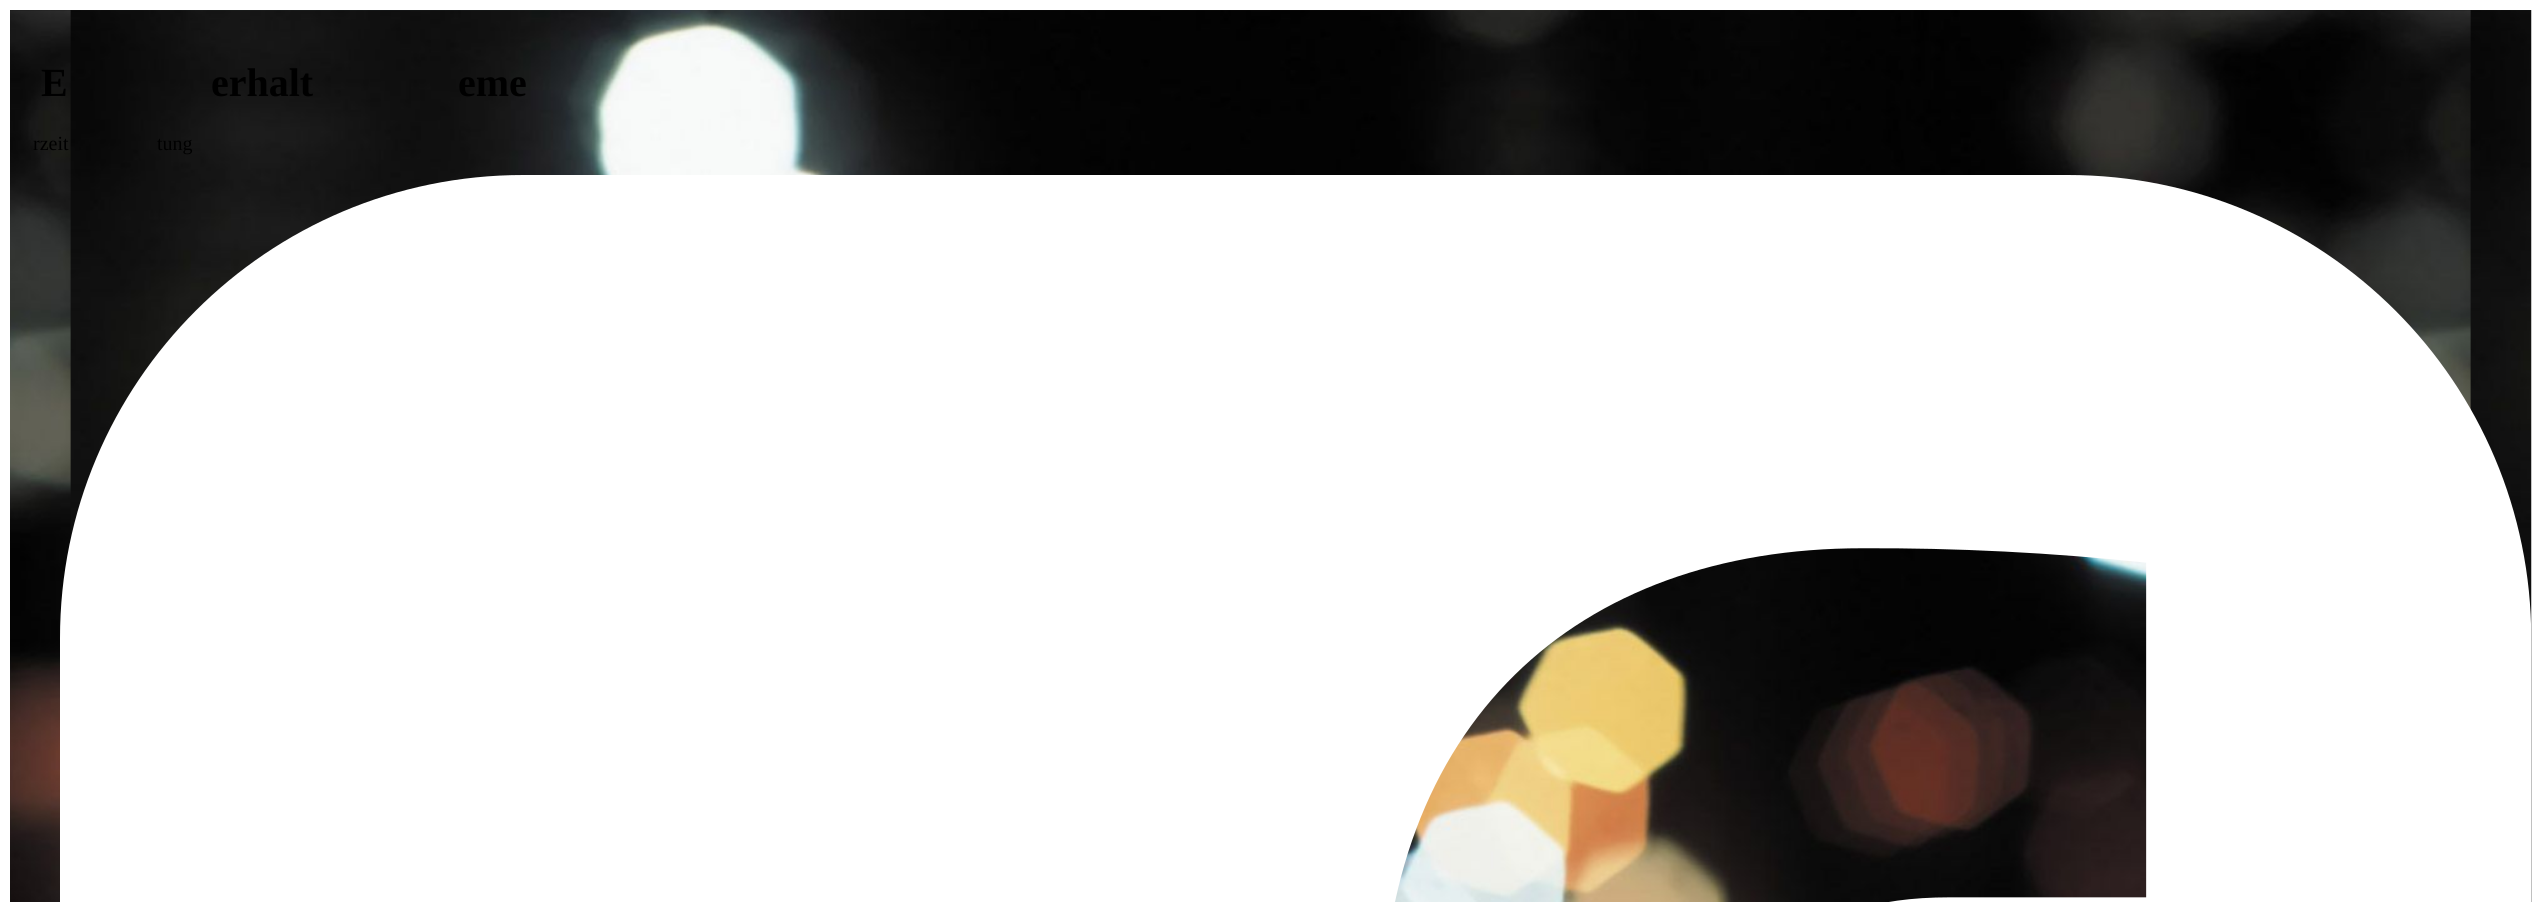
#include <cairo.h>
#include <math.h>
#include <stddef.h>


static void rgb(cairo_t *cr, int r, int g, int b)
{
	cairo_set_source_rgb(cr, r / 255.0, g / 255.0, b / 255.0);
}

static void face(cairo_t *cr, const char *family, double size, int italic, int bold)
{
	cairo_select_font_face(cr, family, italic ? CAIRO_FONT_SLANT_ITALIC : CAIRO_FONT_SLANT_NORMAL,
		bold ? CAIRO_FONT_WEIGHT_BOLD : CAIRO_FONT_WEIGHT_NORMAL);
	cairo_set_font_size(cr, size);
}

static void label(cairo_t *cr, double x, double y, const char *s)
{
	cairo_move_to(cr, x, y);
	cairo_show_text(cr, s);
}

static void image(cairo_t *cr, const char *path, double x, double y, double w, double h)
{
	cairo_surface_t *image = cairo_image_surface_create_from_png(path);
	cairo_save(cr);
	cairo_set_source_surface(cr, image, x, y);
	cairo_rectangle(cr, x, y, w, h);
	cairo_fill(cr);
	cairo_restore(cr);
	cairo_surface_destroy(image);
}

static void draw(cairo_t *cr) {
	rgb(cr, 255, 255, 255);
	cairo_paint(cr);
	image(cr, "image0.png", 10, 10, 2522, 892);
	face(cr, "Liberation Serif", 40, 0, 1);
	rgb(cr, 0, 0, 0);
	label(cr, 41, 96, "E");
	label(cr, 211, 96, "erhalt");
	label(cr, 458, 96, "eme");
	face(cr, "Liberation Serif", 20, 0, 0);
	label(cr, 33, 150, "rzeit");
	label(cr, 157, 150, "tung");
	image(cr, "image1.png", 60, 175, 2471, 727);
}

int main(void) {
	cairo_surface_t *surface = cairo_image_surface_create(CAIRO_FORMAT_RGB24, 2541, 902);
	cairo_t *cr = cairo_create(surface);
	cairo_font_options_t *options = cairo_font_options_create();
	cairo_font_options_set_hint_metrics(options, CAIRO_HINT_METRICS_OFF);
	cairo_font_options_set_hint_style(options, CAIRO_HINT_STYLE_NONE);
	cairo_set_font_options(cr, options);
	cairo_set_miter_limit(cr, 4);
	draw(cr);
	cairo_surface_write_to_png(surface, "render.png");
	cairo_font_options_destroy(options);
	cairo_destroy(cr);
	cairo_surface_destroy(surface);
	return 0;
}
